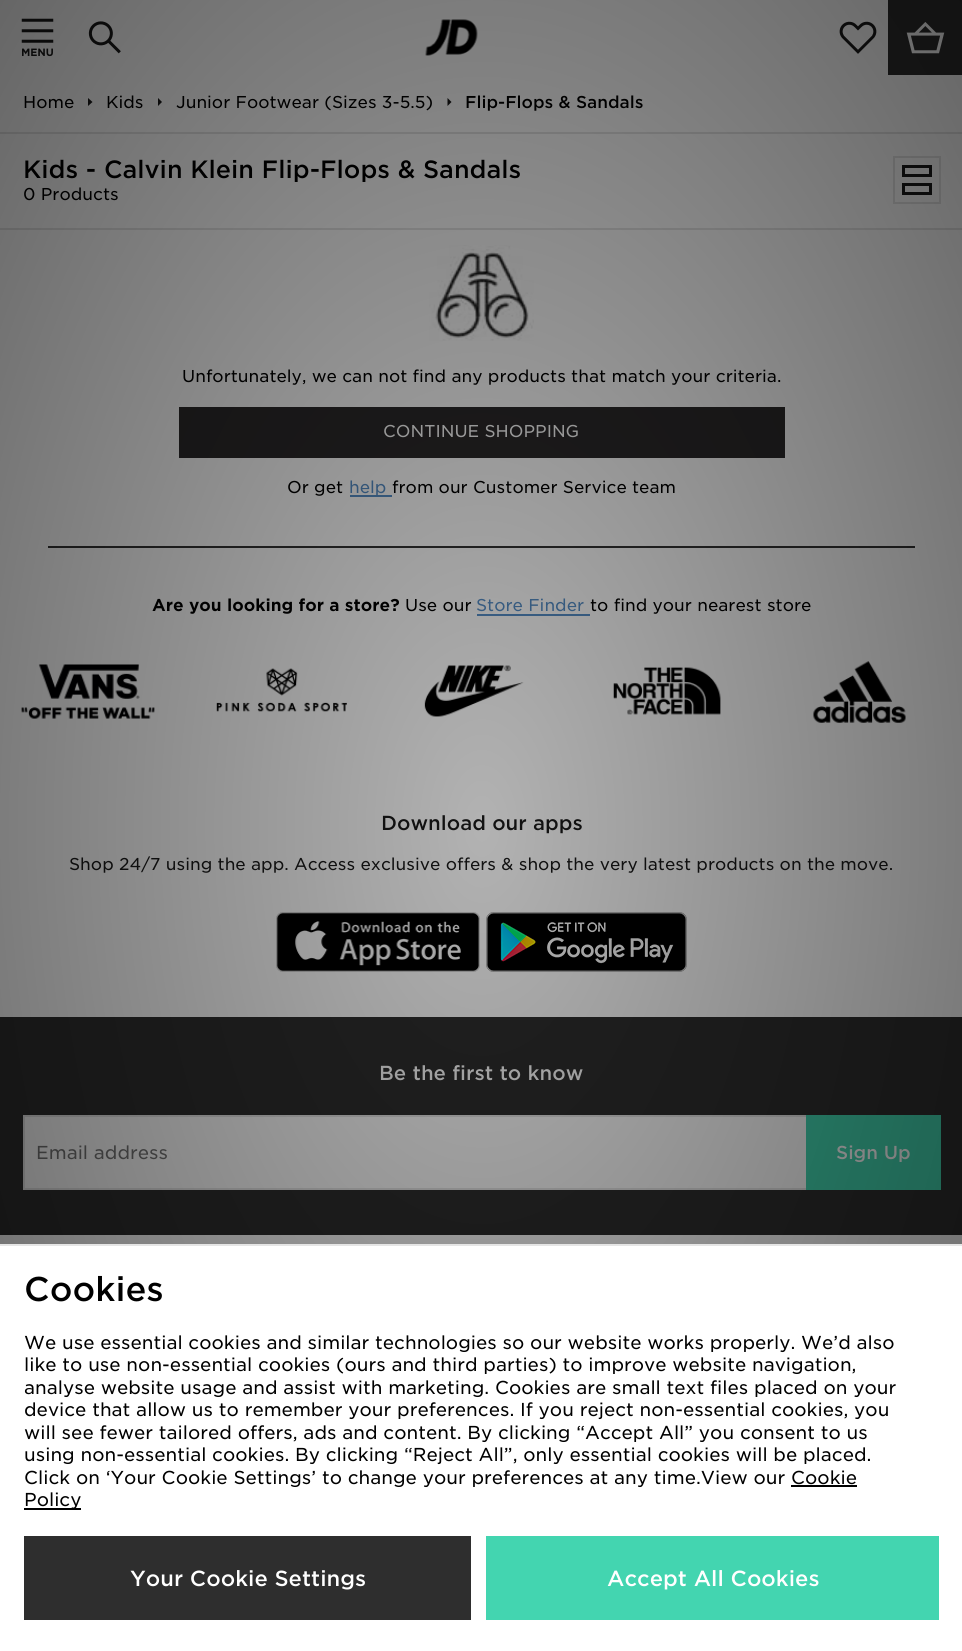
#include <cairo.h>
#include <math.h>
#include <stddef.h>


static void rgb(cairo_t *cr, int r, int g, int b)
{
	cairo_set_source_rgb(cr, r / 255.0, g / 255.0, b / 255.0);
}

static void face(cairo_t *cr, const char *family, double size, int italic, int bold)
{
	cairo_select_font_face(cr, family, italic ? CAIRO_FONT_SLANT_ITALIC : CAIRO_FONT_SLANT_NORMAL,
		bold ? CAIRO_FONT_WEIGHT_BOLD : CAIRO_FONT_WEIGHT_NORMAL);
	cairo_set_font_size(cr, size);
}

static void label(cairo_t *cr, double x, double y, const char *s)
{
	cairo_move_to(cr, x, y);
	cairo_show_text(cr, s);
}

static void rect(cairo_t *cr, double x, double y, double w, double h)
{
	cairo_rectangle(cr, x, y, w, h);
	cairo_fill(cr);
}

static void image(cairo_t *cr, const char *path, double x, double y, double w, double h)
{
	cairo_surface_t *image = cairo_image_surface_create_from_png(path);
	cairo_save(cr);
	cairo_set_source_surface(cr, image, x, y);
	cairo_rectangle(cr, x, y, w, h);
	cairo_fill(cr);
	cairo_restore(cr);
	cairo_surface_destroy(image);
}

static void draw(cairo_t *cr) {
	cairo_pattern_t *gradient;
	rgb(cr, 255, 255, 255);
	cairo_paint(cr);
	image(cr, "image0.png", 21, 18, 33, 39);
	image(cr, "image1.png", 88, 21, 33, 33);
	image(cr, "image2.png", 425, 19, 53, 37);
	image(cr, "image3.png", 839, 21, 38, 33);
	rgb(cr, 46, 46, 46);
	rect(cr, 888, 0, 74, 75);
	image(cr, "image4.png", 906, 22, 39, 32);
	rgb(cr, 229, 229, 229);
	rect(cr, 0, 132, 962, 2);
	face(cr, "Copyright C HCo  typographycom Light", 16.5, 0, 0);
	rgb(cr, 0, 0, 0);
	label(cr, 23, 108, "Home");
	rgb(cr, 26, 26, 26);
	cairo_new_path(cr);
	cairo_move_to(cr, 88, 98);
	cairo_line_to(cr, 92.5, 102);
	cairo_line_to(cr, 88, 102);
	cairo_close_path(cr);
	cairo_move_to(cr, 92.5, 102);
	cairo_line_to(cr, 88, 106);
	cairo_line_to(cr, 88, 102);
	cairo_close_path(cr);
	cairo_fill(cr);
	rgb(cr, 0, 0, 0);
	label(cr, 106, 108, "Kids");
	rgb(cr, 26, 26, 26);
	cairo_new_path(cr);
	cairo_move_to(cr, 158, 98);
	cairo_line_to(cr, 162, 102);
	cairo_line_to(cr, 158, 102);
	cairo_close_path(cr);
	cairo_move_to(cr, 162, 102);
	cairo_line_to(cr, 158, 106);
	cairo_line_to(cr, 158, 102);
	cairo_close_path(cr);
	cairo_fill(cr);
	rgb(cr, 0, 0, 0);
	label(cr, 176, 108, "Junior Footwear (Sizes 3-5.5)");
	rgb(cr, 26, 26, 26);
	cairo_new_path(cr);
	cairo_move_to(cr, 447.5, 98);
	cairo_line_to(cr, 451.5, 102);
	cairo_line_to(cr, 447.5, 102);
	cairo_close_path(cr);
	cairo_move_to(cr, 451.5, 102);
	cairo_line_to(cr, 447.5, 106);
	cairo_line_to(cr, 447.5, 102);
	cairo_close_path(cr);
	cairo_fill(cr);
	face(cr, "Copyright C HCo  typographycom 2 Light", 16.5, 0, 0);
	rgb(cr, 0, 0, 0);
	label(cr, 465, 108, "Flip-Flops & Sandals");
	rgb(cr, 229, 229, 229);
	rect(cr, 0, 228, 962, 2);
	face(cr, "Copyright C HCo  typographycom 2 Light", 24, 0, 0);
	rgb(cr, 0, 0, 0);
	label(cr, 23, 178, "Kids - Calvin Klein Flip-Flops & Sandals");
	cairo_rectangle(cr, 894, 157, 46, 46);
	rgb(cr, 229, 229, 229);
	cairo_stroke(cr);
	cairo_rectangle(cr, 903.5, 166.5, 27, 9);
	rgb(cr, 26, 26, 26);
	cairo_set_line_width(cr, 3);
	cairo_stroke(cr);
	cairo_rectangle(cr, 903.5, 184.5, 27, 9);
	cairo_stroke(cr);
	face(cr, "Copyright C HCo  typographycom Light", 16.5, 0, 0);
	rgb(cr, 0, 0, 0);
	label(cr, 23, 200, "0 Products");
	image(cr, "image5.png", 429, 245, 105, 96);
	label(cr, 182, 382, "Unfortunately, we can not find any products that match your criteria.");
	rgb(cr, 43, 41, 42);
	rect(cr, 179, 407, 606, 51);
	rgb(cr, 255, 255, 255);
	label(cr, 383, 437, "CONTINUE SHOPPING");
	rgb(cr, 0, 0, 0);
	label(cr, 287, 493, "Or get");
	rgb(cr, 86, 142, 199);
	rect(cr, 350, 495, 42, 2);
	label(cr, 349, 493, "help");
	rgb(cr, 0, 0, 0);
	label(cr, 392, 493, "from our Customer Service team");
	rgb(cr, 51, 51, 51);
	rect(cr, 48, 546, 867, 2);
	face(cr, "Copyright C HCo  typographycom", 16.5, 0, 0);
	rgb(cr, 0, 0, 0);
	label(cr, 152, 611, "Are you looking for a store?");
	face(cr, "Copyright C HCo  typographycom Light", 16.5, 0, 0);
	label(cr, 405, 611, "Use our");
	rgb(cr, 86, 142, 199);
	label(cr, 476, 611, "Store Finder");
	rect(cr, 477, 614, 113, 2);
	rgb(cr, 0, 0, 0);
	label(cr, 590, 611, "to find your nearest store");
	image(cr, "image6.png", 21, 664, 134, 55);
	image(cr, "image7.png", 216, 668, 131, 44);
	image(cr, "image8.png", 424, 665, 100, 52);
	image(cr, "image9.png", 613, 667, 108, 48);
	image(cr, "image10.png", 813, 661, 93, 62);
	face(cr, "Copyright C HCo  typographycom 2 Light", 19.5, 0, 0);
	rgb(cr, 26, 26, 26);
	label(cr, 381, 830, "Download our apps");
	face(cr, "Copyright C HCo  typographycom Light", 16.5, 0, 0);
	label(cr, 69, 870, "Shop 24/7 using the app. Access exclusive offers & shop the very latest products on the move.");
	image(cr, "image11.png", 276, 912, 204, 60);
	image(cr, "image12.png", 486, 912, 201, 60);
	rgb(cr, 46, 46, 46);
	rect(cr, 0, 1017, 962, 218);
	face(cr, "Copyright C HCo  typographycom 2 Light", 19.5, 0, 0);
	rgb(cr, 255, 255, 255);
	label(cr, 379, 1080, "Be the first to know");
	rect(cr, 25, 1117, 781, 71);
	cairo_rectangle(cr, 24, 1116, 916, 73);
	rgb(cr, 229, 229, 229);
	cairo_set_line_width(cr, 2);
	cairo_stroke(cr);
	face(cr, "Copyright C HCo  typographycom Light", 18, 0, 0);
	rgb(cr, 117, 117, 117);
	label(cr, 36, 1159, "Email address");
	rgb(cr, 67, 213, 176);
	rect(cr, 806, 1115, 135, 75);
	face(cr, "Copyright C HCo  typographycom 2 Light", 18, 0, 0);
	rgb(cr, 255, 255, 255);
	label(cr, 836, 1159, "Sign Up");
	gradient = cairo_pattern_create_radial(0, 0, 0, 0, 0, 1);
	cairo_pattern_set_matrix(gradient, &(cairo_matrix_t){1.0 / 681, 0, 0, 1.0 / 1168, -1.0 * 482 / 681, -1.0 * 826 / 1168});
	cairo_pattern_add_color_stop_rgba(gradient, 0, 0, 0, 0, 0.3);
	cairo_pattern_add_color_stop_rgba(gradient, 1, 0, 0, 0, 0.6);
	cairo_set_source(cr, gradient);
	cairo_pattern_destroy(gradient);
	rect(cr, 0, 0, 962, 1244);
	rgb(cr, 229, 229, 229);
	rect(cr, 0, 1244, 962, 2);
	face(cr, "Copyright C HCo  typographycom 2 Light", 33, 0, 0);
	rgb(cr, 0, 0, 0);
	label(cr, 24, 1301, "Cookies");
	face(cr, "Copyright C HCo  typographycom Light", 18, 0, 0);
	label(cr, 24, 1349, "We use essential cookies and similar technologies so our website works properly. We’d also");
	label(cr, 24, 1371, "like to use non-essential cookies (ours and third parties) to improve website navigation,");
	label(cr, 24, 1394, "analyse website usage and assist with marketing. Cookies are small text files placed on your");
	label(cr, 24, 1416, "device that allow us to remember your preferences. If you reject non-essential cookies, you");
	label(cr, 24, 1439, "will see fewer tailored offers, ads and content. By clicking “Accept All” you consent to us");
	label(cr, 24, 1461, "using non-essential cookies. By clicking “Reject All”, only essential cookies will be placed.");
	label(cr, 24, 1484, "Click on ‘Your Cookie Settings’ to change your preferences at any time.View our Cookie");
	rect(cr, 24, 1508, 57, 2);
	label(cr, 24, 1506, "Policy");
	rect(cr, 791, 1485, 66, 2);
	rgb(cr, 46, 46, 46);
	rect(cr, 24, 1536, 447, 84);
	face(cr, "Copyright C HCo  typographycom 2 Light", 21, 0, 0);
	rgb(cr, 255, 255, 255);
	label(cr, 130, 1586, "Your Cookie Settings");
	rgb(cr, 67, 213, 176);
	rect(cr, 486, 1536, 453, 84);
	rgb(cr, 255, 255, 255);
	label(cr, 607, 1586, "Accept All Cookies");
}

int main(void) {
	cairo_surface_t *surface = cairo_image_surface_create(CAIRO_FORMAT_RGB24, 962, 1651);
	cairo_t *cr = cairo_create(surface);
	cairo_font_options_t *options = cairo_font_options_create();
	cairo_font_options_set_hint_metrics(options, CAIRO_HINT_METRICS_OFF);
	cairo_font_options_set_hint_style(options, CAIRO_HINT_STYLE_NONE);
	cairo_set_font_options(cr, options);
	cairo_set_miter_limit(cr, 4);
	draw(cr);
	cairo_surface_write_to_png(surface, "render.png");
	cairo_font_options_destroy(options);
	cairo_destroy(cr);
	cairo_surface_destroy(surface);
	return 0;
}
